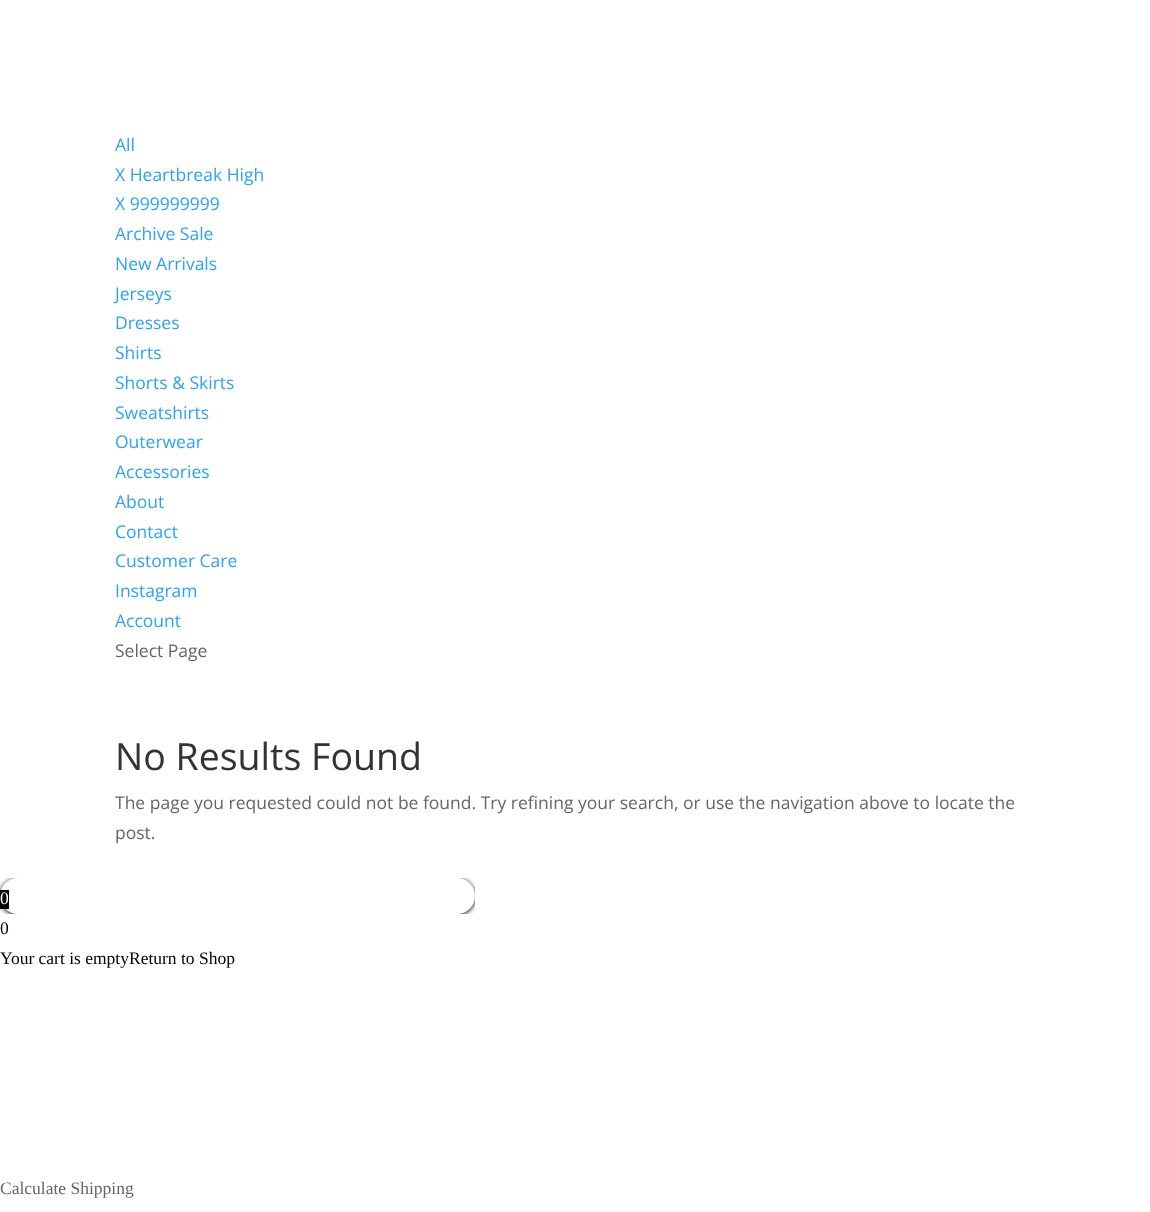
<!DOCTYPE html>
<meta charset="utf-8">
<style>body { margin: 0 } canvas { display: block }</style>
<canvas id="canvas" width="1150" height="1212"></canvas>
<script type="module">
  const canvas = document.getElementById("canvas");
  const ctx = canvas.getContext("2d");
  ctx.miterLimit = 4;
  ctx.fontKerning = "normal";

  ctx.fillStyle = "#ffffff";
  ctx.fillRect(0, 0, 1150, 1212);
  ctx.font = "17.5px Open Sans";
  ctx.fillStyle = "#2ea3f2";
  ctx.fillText("All", 115, 151);
  ctx.fillText("X Heartbreak High", 115, 181);
  ctx.fillText("X 999999999", 115, 210);
  ctx.fillText("Archive Sale", 115, 240);
  ctx.fillText("New Arrivals", 115, 270);
  ctx.fillText("Jerseys", 115, 300);
  ctx.fillText("Dresses", 115, 329);
  ctx.fillText("Shirts", 115, 359);
  ctx.fillText("Shorts & Skirts", 115, 389);
  ctx.fillText("Sweatshirts", 115, 419);
  ctx.fillText("Outerwear", 115, 448);
  ctx.fillText("Accessories", 115, 478);
  ctx.fillText("About", 115, 508);
  ctx.fillText("Contact", 115, 538);
  ctx.fillText("Customer Care", 115, 567);
  ctx.fillText("Instagram", 115, 597);
  ctx.fillText("Account", 115, 627);
  ctx.fillStyle = "#666666";
  ctx.fillText("Select Page", 115, 657);
  ctx.font = "37.5px Open Sans";
  ctx.fillStyle = "#333333";
  ctx.fillText("No Results Found", 115, 770);
  ctx.font = "17.5px Open Sans";
  ctx.fillStyle = "#666666";
  ctx.fillText("The page you requested could not be found. Try refining your search, or use the navigation above to locate the", 115, 809);
  ctx.fillText("post.", 115, 839);
  ctx.save();
  ctx.beginPath();
  ctx.rect(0, 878, 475, 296);
  ctx.clip();
  ctx.fillStyle = "#000000";
  ctx.filter = "blur(2.5px)";
  ctx.beginPath();
  ctx.roundRect(0, 879, 475, 36, 18);
  ctx.fill();
  ctx.filter = "none";
  ctx.restore();
  ctx.fillStyle = "#ffffff";
  ctx.beginPath();
  ctx.roundRect(0, 878, 475, 36, 18);
  ctx.fill();
  ctx.fillStyle = "#000000";
  ctx.fillRect(0, 890, 9, 19);
  ctx.font = "17.5px Liberation Serif";
  ctx.fillStyle = "#ffffff";
  ctx.fillText("0", 0, 904);
  ctx.fillRect(2, 914, 471, 7);
  ctx.fillStyle = "#000000";
  ctx.fillText("0", 0, 934);
  ctx.fillText("Your cart is emptyReturn to Shop", 0, 964);
  ctx.fillStyle = "#666666";
  ctx.fillText("Calculate Shipping", 0, 1194);
</script>
